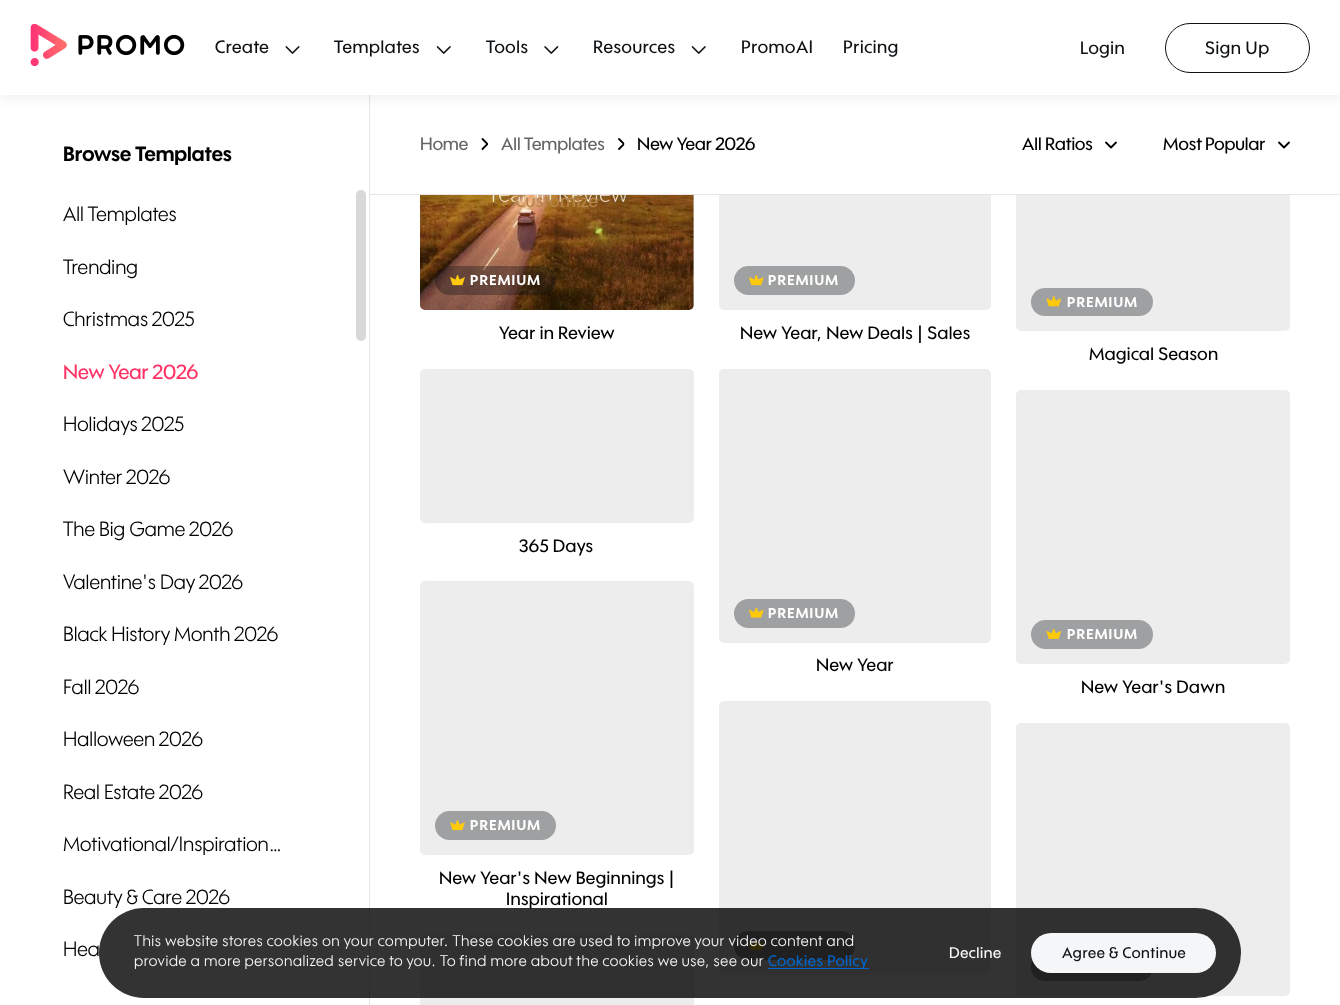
<!DOCTYPE html>
<meta charset="utf-8">
<style>body { margin: 0 } canvas { display: block }</style>
<canvas id="canvas" width="1340" height="1005"></canvas>
<script type="module">
  const canvas = document.getElementById("canvas");
  const ctx = canvas.getContext("2d");
  ctx.miterLimit = 4;
  ctx.fontKerning = "normal";
  async function loadImage(src) {
    const img = new Image();
    img.src = src;
    await img.decode();
    return img;
  }

  ctx.fillStyle = "#ffffff";
  ctx.fillRect(0, 0, 1340, 1005);
  ctx.fillStyle = "#e6e6e6";
  ctx.fillRect(369, 95, 1, 910);
  ctx.fillStyle = "#ededed";
  ctx.beginPath();
  ctx.roundRect(420, 38, 274, 272, 5);
  ctx.fill();
  ctx.beginPath();
  ctx.roundRect(719, 38, 272, 272, 5);
  ctx.fill();
  ctx.beginPath();
  ctx.roundRect(1016, 59, 274, 272, 5);
  ctx.fill();
  ctx.fillStyle = "#ffffff";
  ctx.fillRect(420, 95, 870, 99);
  ctx.fillStyle = "rgba(0, 0, 0, 0.05)";
  ctx.filter = "blur(5px)";
  ctx.beginPath();
  ctx.rect(0, 5, 1340, 95);
  ctx.fill();
  ctx.filter = "none";
  ctx.fillStyle = "#ffffff";
  ctx.fillRect(0, 1, 1340, 94);
  ctx.drawImage(await loadImage("img1.png"), 30, 24, 155, 42);
  ctx.letterSpacing = "0.62px";
  ctx.font = "500 17.5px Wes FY";
  ctx.fillStyle = "#0e1114";
  ctx.fillText("Create", 215, 53);
  ctx.drawImage(await loadImage("img2.png"), 285, 46, 15, 8);
  ctx.fillText("Templates", 334, 53);
  ctx.drawImage(await loadImage("img3.png"), 436, 46, 15, 8);
  ctx.fillText("Tools", 486, 53);
  ctx.drawImage(await loadImage("img4.png"), 544, 46, 15, 8);
  ctx.fillText("Resources", 593, 53);
  ctx.drawImage(await loadImage("img3.png"), 691, 46, 15, 8);
  ctx.fillText("PromoAI", 741, 53);
  ctx.fillText("Pricing", 843, 53);
  ctx.fillText("Login", 1080, 54);
  ctx.beginPath();
  ctx.roundRect(1165.5, 23.5, 144, 49, 24.5);
  ctx.strokeStyle = "#0e1114";
  ctx.stroke();
  ctx.fillText("Sign Up", 1205, 54);
  ctx.letterSpacing = "0px";
  ctx.font = "bold 20px Wes FY";
  ctx.fillStyle = "#000000";
  ctx.fillText("Browse Templates", 63, 161);
  ctx.font = "20px Wes FY";
  ctx.fillText("All Templates", 63, 221);
  ctx.fillText("Trending", 63, 274);
  ctx.fillText("Christmas 2025", 63, 326);
  ctx.font = "500 20px Wes FY";
  ctx.fillStyle = "#ff3366";
  ctx.fillText("New Year 2026", 63, 379);
  ctx.font = "20px Wes FY";
  ctx.fillStyle = "#000000";
  ctx.fillText("Holidays 2025", 63, 431);
  ctx.fillText("Winter 2026", 63, 484);
  ctx.fillText("The Big Game 2026", 63, 536);
  ctx.fillText("Valentine's Day 2026", 63, 589);
  ctx.fillText("Black History Month 2026", 63, 641);
  ctx.fillText("Fall 2026", 63, 694);
  ctx.fillText("Halloween 2026", 63, 746);
  ctx.fillText("Real Estate 2026", 63, 799);
  ctx.fillText("Motivational/Inspiration…", 63, 851);
  ctx.fillText("Beauty & Care 2026", 63, 904);
  ctx.fillText("Hea", 63, 956);
  ctx.fillStyle = "#d8d8d8";
  ctx.beginPath();
  ctx.roundRect(356, 190, 10, 151, 5);
  ctx.fill();
  ctx.drawImage(await loadImage("img6.png"), 420, 195, 274, 115);
  ctx.letterSpacing = "0.5px";
  ctx.font = "500 17.5px Wes FY";
  ctx.fillStyle = "#b6844c";
  ctx.fillText("Customize", 515, 207);
  ctx.fillStyle = "#e6e6e6";
  ctx.fillRect(370, 194, 970, 1);
  ctx.letterSpacing = "0px";
  ctx.fillStyle = "#666666";
  ctx.fillText("Home", 420, 150);
  ctx.save();
  ctx.beginPath();
  ctx.moveTo(480.5, 150.5);
  ctx.lineTo(480.5, 138);
  ctx.lineTo(488, 138);
  ctx.lineTo(488, 150.5);
  ctx.closePath();
  ctx.clip();
  ctx.beginPath();
  ctx.moveTo(482.5, 149);
  ctx.lineTo(487.5, 144);
  ctx.lineTo(482.5, 139);
  ctx.strokeStyle = "#000000";
  ctx.lineWidth = 1.8;
  ctx.lineCap = "round";
  ctx.lineJoin = "round";
  ctx.stroke();
  ctx.restore();
  ctx.fillText("All Templates", 501, 150);
  ctx.save();
  ctx.beginPath();
  ctx.moveTo(617, 150.5);
  ctx.lineTo(617, 138);
  ctx.lineTo(624.5, 138);
  ctx.lineTo(624.5, 150.5);
  ctx.closePath();
  ctx.clip();
  ctx.beginPath();
  ctx.moveTo(617, 150.5);
  ctx.lineTo(617, 138);
  ctx.lineTo(624.5, 138);
  ctx.lineTo(624.5, 150.5);
  ctx.closePath();
  ctx.clip();
  ctx.beginPath();
  ctx.moveTo(619, 149);
  ctx.lineTo(624, 144);
  ctx.lineTo(619, 139);
  ctx.strokeStyle = "#000000";
  ctx.lineWidth = 1.8;
  ctx.lineCap = "round";
  ctx.lineJoin = "round";
  ctx.stroke();
  ctx.restore();
  ctx.fillStyle = "#000000";
  ctx.fillText("New Year 2026", 637, 150);
  ctx.fillText("All Ratios", 1022, 150);
  ctx.beginPath();
  ctx.moveTo(1106, 142.5);
  ctx.lineTo(1111, 147.5);
  ctx.lineTo(1116, 142.5);
  ctx.strokeStyle = "#000000";
  ctx.lineWidth = 1.8;
  ctx.lineCap = "round";
  ctx.lineJoin = "round";
  ctx.stroke();
  ctx.fillText("Most Popular", 1163, 150);
  ctx.beginPath();
  ctx.moveTo(1279, 142.5);
  ctx.lineTo(1284, 147.5);
  ctx.lineTo(1289, 142.5);
  ctx.stroke();
  ctx.fillStyle = "rgba(14, 17, 20, 0.35)";
  ctx.beginPath();
  ctx.roundRect(435, 266, 121, 29, 14.5);
  ctx.fill();
  ctx.drawImage(await loadImage("img5.png"), 450, 275, 15, 11);
  ctx.letterSpacing = "1.25px";
  ctx.font = "bold 13.75px Wes FY";
  ctx.fillStyle = "#ffffff";
  ctx.fillText("PREMIUM", 470, 285);
  ctx.letterSpacing = "0.4px";
  ctx.font = "500 17.5px Wes FY";
  ctx.fillStyle = "#000000";
  ctx.fillText("Year in Review", 499, 339);
  ctx.fillStyle = "#ededed";
  ctx.beginPath();
  ctx.roundRect(420, 369, 274, 154, 5);
  ctx.fill();
  ctx.fillStyle = "#000000";
  ctx.fillText("365 Days", 519, 552);
  ctx.fillStyle = "#ededed";
  ctx.beginPath();
  ctx.roundRect(420, 581, 274, 274, 5);
  ctx.fill();
  ctx.fillStyle = "#9fa0a1";
  ctx.beginPath();
  ctx.roundRect(435, 811, 121, 29, 14.5);
  ctx.fill();
  ctx.drawImage(await loadImage("img7.png"), 450, 820, 15, 11);
  ctx.letterSpacing = "1.25px";
  ctx.font = "bold 13.75px Wes FY";
  ctx.fillStyle = "#ffffff";
  ctx.fillText("PREMIUM", 470, 830);
  ctx.letterSpacing = "0.4px";
  ctx.font = "500 17.5px Wes FY";
  ctx.fillStyle = "#000000";
  ctx.fillText("New Year's New Beginnings |", 439, 884);
  ctx.fillText("Inspirational", 506, 905);
  ctx.fillStyle = "#ededed";
  ctx.beginPath();
  ctx.roundRect(420, 935, 274, 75, 5);
  ctx.fill();
  ctx.fillStyle = "#9fa0a1";
  ctx.beginPath();
  ctx.roundRect(734, 266, 121, 29, 14.5);
  ctx.fill();
  ctx.drawImage(await loadImage("img8.png"), 749, 275, 15, 11);
  ctx.letterSpacing = "1.25px";
  ctx.font = "bold 13.75px Wes FY";
  ctx.fillStyle = "#ffffff";
  ctx.fillText("PREMIUM", 768, 285);
  ctx.letterSpacing = "0.4px";
  ctx.font = "500 17.5px Wes FY";
  ctx.fillStyle = "#000000";
  ctx.fillText("New Year, New Deals | Sales", 740, 339);
  ctx.fillStyle = "#ededed";
  ctx.beginPath();
  ctx.roundRect(719, 369, 272, 274, 5);
  ctx.fill();
  ctx.fillStyle = "#9fa0a1";
  ctx.beginPath();
  ctx.roundRect(734, 599, 121, 29, 14.5);
  ctx.fill();
  ctx.drawImage(await loadImage("img9.png"), 749, 608, 15, 10);
  ctx.letterSpacing = "1.25px";
  ctx.font = "bold 13.75px Wes FY";
  ctx.fillStyle = "#ffffff";
  ctx.fillText("PREMIUM", 768, 618);
  ctx.letterSpacing = "0.4px";
  ctx.font = "500 17.5px Wes FY";
  ctx.fillStyle = "#000000";
  ctx.fillText("New Year", 816, 671);
  ctx.fillStyle = "#ededed";
  ctx.beginPath();
  ctx.roundRect(719, 701, 272, 274, 5);
  ctx.fill();
  ctx.fillStyle = "#9fa0a1";
  ctx.beginPath();
  ctx.roundRect(734, 931, 121, 29, 14.5);
  ctx.fill();
  ctx.drawImage(await loadImage("img10.png"), 749, 939, 15, 11);
  ctx.beginPath();
  ctx.roundRect(1031, 288, 122, 28, 14);
  ctx.fill();
  ctx.drawImage(await loadImage("img11.png"), 1046, 296, 15, 11);
  ctx.letterSpacing = "1.25px";
  ctx.font = "bold 13.75px Wes FY";
  ctx.fillStyle = "#ffffff";
  ctx.fillText("PREMIUM", 1067, 307);
  ctx.letterSpacing = "0.4px";
  ctx.font = "500 17.5px Wes FY";
  ctx.fillStyle = "#000000";
  ctx.fillText("Magical Season", 1089, 360);
  ctx.fillStyle = "#ededed";
  ctx.beginPath();
  ctx.roundRect(1016, 390, 274, 274, 5);
  ctx.fill();
  ctx.fillStyle = "#9fa0a1";
  ctx.beginPath();
  ctx.roundRect(1031, 620, 122, 29, 14.5);
  ctx.fill();
  ctx.drawImage(await loadImage("img12.png"), 1046, 629, 15, 10);
  ctx.letterSpacing = "1.25px";
  ctx.font = "bold 13.75px Wes FY";
  ctx.fillStyle = "#ffffff";
  ctx.fillText("PREMIUM", 1067, 639);
  ctx.letterSpacing = "0.4px";
  ctx.font = "500 17.5px Wes FY";
  ctx.fillStyle = "#000000";
  ctx.fillText("New Year's Dawn", 1081, 693);
  ctx.fillStyle = "#ededed";
  ctx.beginPath();
  ctx.roundRect(1016, 723, 274, 273, 5);
  ctx.fill();
  ctx.fillStyle = "#9fa0a1";
  ctx.beginPath();
  ctx.roundRect(1031, 953, 122, 28, 14);
  ctx.fill();
  ctx.fillStyle = "rgba(0, 0, 0, 0.8)";
  ctx.beginPath();
  ctx.roundRect(99, 908, 1142, 90, 45);
  ctx.fill();
  ctx.letterSpacing = "0.62px";
  ctx.font = "15px Wes FY";
  ctx.fillStyle = "#f9f9f9";
  ctx.fillText("This website stores cookies on your computer. These cookies are used to improve your video content and", 134, 946);
  ctx.fillText("provide a more personalized service to you. To find more about the cookies we use, see our", 134, 966);
  ctx.fillStyle = "#0066cc";
  ctx.fillRect(768, 968, 101, 1);
  ctx.font = "500 15px Wes FY";
  ctx.fillText("Cookies Policy", 768, 966);
  ctx.fillStyle = "#f9f9f9";
  ctx.fillText("Decline", 949, 958);
  ctx.fillStyle = "#f5f6f8";
  ctx.beginPath();
  ctx.roundRect(1031, 933, 185, 40, 20);
  ctx.fill();
  ctx.fillStyle = "#0e1114";
  ctx.fillText("Agree & Continue", 1062, 958);
</script>
